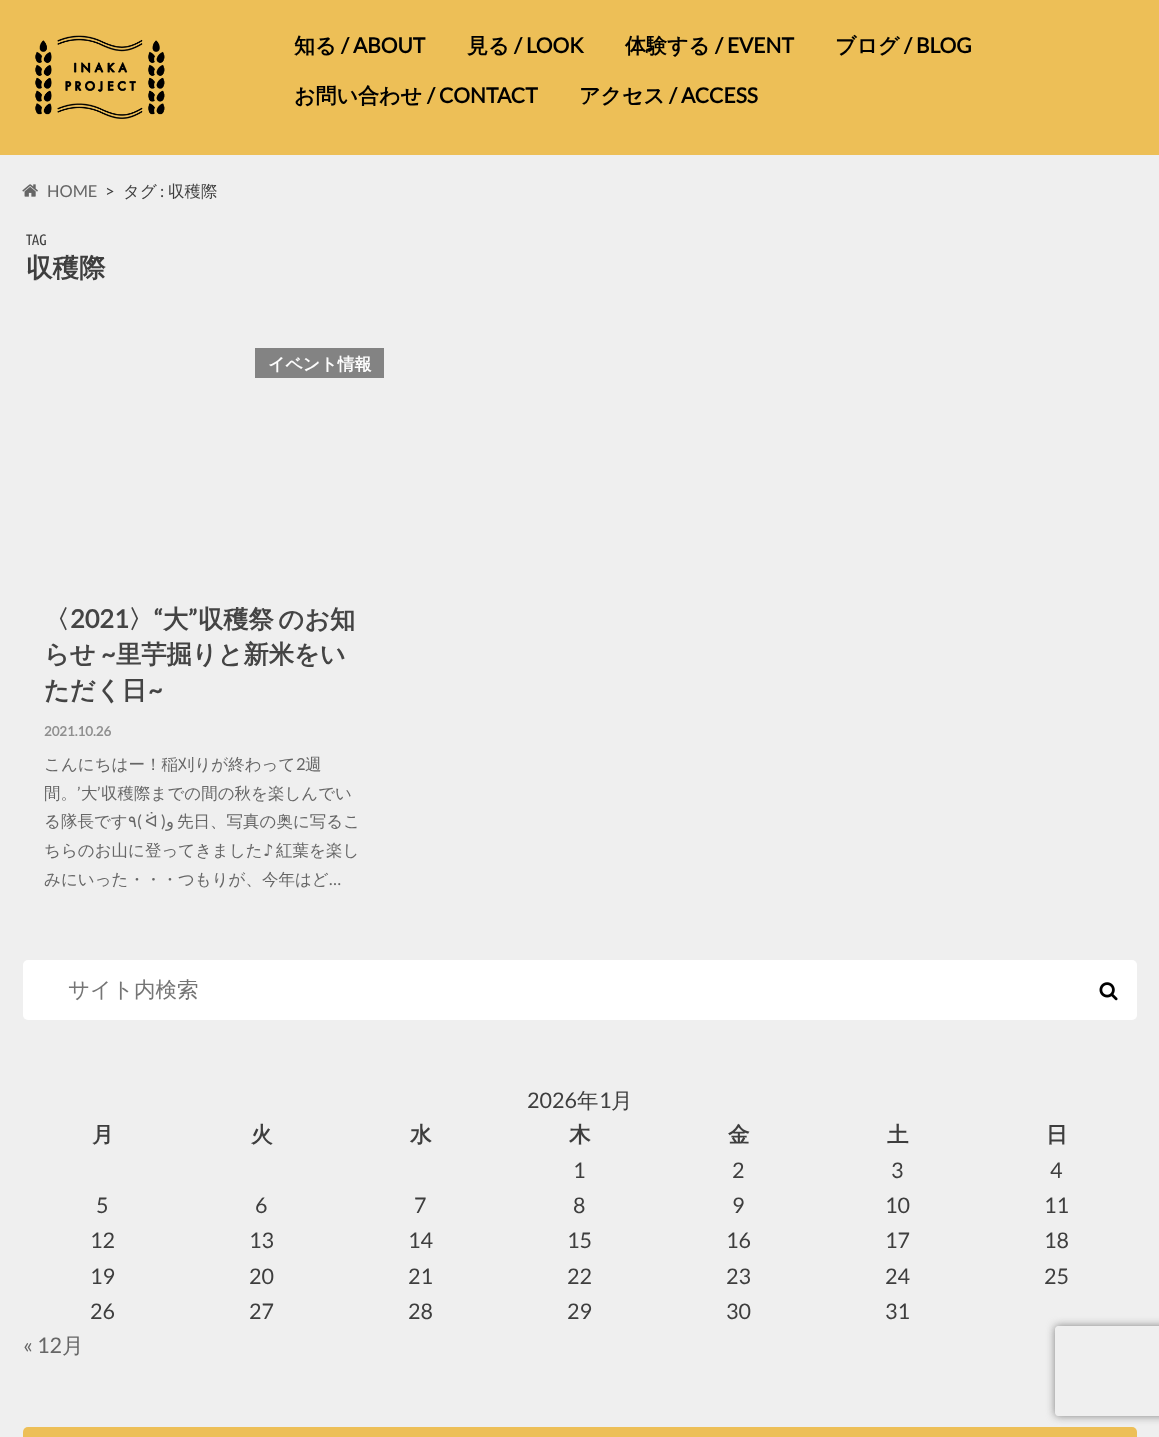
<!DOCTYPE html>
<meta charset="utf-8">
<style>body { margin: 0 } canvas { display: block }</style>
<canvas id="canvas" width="1159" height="1437"></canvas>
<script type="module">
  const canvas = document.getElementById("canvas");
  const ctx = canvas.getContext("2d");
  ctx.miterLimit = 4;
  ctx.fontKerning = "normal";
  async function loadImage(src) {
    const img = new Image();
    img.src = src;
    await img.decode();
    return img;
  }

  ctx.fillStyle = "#efefef";
  ctx.fillRect(0, 0, 1159, 1437);
  ctx.fillStyle = "#edbf57";
  ctx.fillRect(0, 0, 1159, 155);
  ctx.drawImage(await loadImage("img1.png"), 35, 35, 130, 84);
  ctx.font = "bold 21px WenQuanYi Zen Hei";
  ctx.fillStyle = "#000000";
  ctx.fillText("知る", 294, 53);
  ctx.font = "bold 21px Lato";
  ctx.fillText("/ ABOUT", 341, 53);
  ctx.font = "bold 21px WenQuanYi Zen Hei";
  ctx.fillText("見る", 467, 53);
  ctx.font = "bold 21px Lato";
  ctx.fillText("/ LOOK", 514, 53);
  ctx.font = "bold 21px WenQuanYi Zen Hei";
  ctx.fillText("体験する", 625, 53);
  ctx.font = "bold 21px Lato";
  ctx.fillText("/ EVENT", 715, 53);
  ctx.font = "bold 21px WenQuanYi Zen Hei";
  ctx.fillText("ブログ", 835, 53);
  ctx.font = "bold 21px Lato";
  ctx.fillText("/ BLOG", 904, 53);
  ctx.font = "bold 21px WenQuanYi Zen Hei";
  ctx.fillText("お問い合わせ", 294, 103);
  ctx.font = "bold 21px Lato";
  ctx.fillText("/ CONTACT", 427, 103);
  ctx.font = "bold 21px WenQuanYi Zen Hei";
  ctx.fillText("アクセス", 579, 103);
  ctx.font = "bold 21px Lato";
  ctx.fillText("/ ACCESS", 669, 103);
  ctx.drawImage(await loadImage("img2.png"), 22, 184, 16, 13);
  ctx.font = "16.5px Lato";
  ctx.fillStyle = "#666666";
  ctx.fillText("HOME", 47, 197);
  ctx.fillStyle = "#3e3e3e";
  ctx.fillText(">", 105, 197);
  ctx.font = "500 16.5px WenQuanYi Zen Hei";
  ctx.fillText("タグ", 123, 197);
  ctx.font = "16.5px Lato";
  ctx.fillText(":", 160, 197);
  ctx.font = "500 16.5px WenQuanYi Zen Hei";
  ctx.fillText("収穫際", 168, 197);
  ctx.font = "15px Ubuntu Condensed";
  ctx.fillText("TAG", 26, 245);
  ctx.font = "bold 26.5px WenQuanYi Zen Hei";
  ctx.fillText("収穫際", 26, 277);
  ctx.fillStyle = "#838383";
  ctx.fillRect(255, 348, 129, 30);
  ctx.font = "bold 17px WenQuanYi Zen Hei";
  ctx.fillStyle = "#fdfdfd";
  ctx.fillText("イベント情報", 268, 370);
  ctx.font = "bold 25.25px WenQuanYi Zen Hei";
  ctx.fillStyle = "#444444";
  ctx.fillText("〈", 44, 628);
  ctx.font = "bold 25.25px Lato";
  ctx.fillText("2021", 70, 628);
  ctx.font = "bold 25.25px WenQuanYi Zen Hei";
  ctx.fillText("〉", 128, 628);
  ctx.font = "bold 25.25px Lato";
  ctx.fillText("“", 154, 628);
  ctx.font = "bold 25.25px WenQuanYi Zen Hei";
  ctx.fillText("大", 163, 628);
  ctx.font = "bold 25.25px Lato";
  ctx.fillText("”", 188, 628);
  ctx.wordSpacing = "-3px";
  ctx.font = "bold 25.25px WenQuanYi Zen Hei";
  ctx.fillText("収穫祭 のお知", 198, 628);
  ctx.wordSpacing = "0px";
  ctx.fillText("らせ", 44, 663);
  ctx.font = "bold 25.25px Lato";
  ctx.fillText("~", 101, 663);
  ctx.font = "bold 25.25px WenQuanYi Zen Hei";
  ctx.fillText("里芋掘りと新米をい", 116, 663);
  ctx.fillText("ただく日", 44, 699);
  ctx.font = "bold 25.25px Lato";
  ctx.fillText("~", 148, 699);
  ctx.font = "bold 13.25px Lato";
  ctx.fillStyle = "#8f8f8f";
  ctx.fillText("2021.10.26", 44, 736);
  ctx.font = "500 16.5px WenQuanYi Zen Hei";
  ctx.fillStyle = "#666666";
  ctx.fillText("こんにちはー！稲刈りが終わって", 44, 770);
  ctx.font = "16.5px Lato";
  ctx.fillText("2", 296, 770);
  ctx.font = "500 16.5px WenQuanYi Zen Hei";
  ctx.fillText("週", 305, 770);
  ctx.fillText("間。", 44, 799);
  ctx.font = "16.5px Lato";
  ctx.fillText("’", 77, 799);
  ctx.font = "500 16.5px WenQuanYi Zen Hei";
  ctx.fillText("大", 81, 799);
  ctx.font = "16.5px Lato";
  ctx.fillText("’", 97, 799);
  ctx.font = "500 16.5px WenQuanYi Zen Hei";
  ctx.fillText("収穫際までの間の秋を楽しんでい", 101, 799);
  ctx.fillText("る隊長です", 44, 827);
  ctx.font = "16.5px DejaVu Sans";
  ctx.fillText("٩", 128, 827);
  ctx.font = "16.5px Lato";
  ctx.fillText("(", 137, 827);
  ctx.font = "16.5px DejaVu Sans";
  ctx.fillText("ᐛ", 145, 827);
  ctx.font = "16.5px Lato";
  ctx.fillText(")", 161, 827);
  ctx.direction = "rtl";
  ctx.font = "16.5px DejaVu Sans";
  ctx.fillText("و", 174, 827);
  ctx.direction = "ltr";
  ctx.font = "500 16.5px WenQuanYi Zen Hei";
  ctx.fillText("先日、写真の奥に写るこ", 177, 827);
  ctx.fillText("ちらのお山に登ってきました", 44, 856);
  ctx.font = "16.5px DejaVu Sans";
  ctx.fillText("♪", 263, 856);
  ctx.font = "500 16.5px WenQuanYi Zen Hei";
  ctx.fillText("紅葉を楽し", 276, 856);
  ctx.fillText("みにいった・・・つもりが、今年はど", 44, 885);
  ctx.font = "16.5px Lato";
  ctx.fillText("…", 329, 885);
  ctx.fillStyle = "#ffffff";
  ctx.beginPath();
  ctx.roundRect(23, 960, 1114, 60, 5);
  ctx.fill();
  ctx.font = "500 21.5px WenQuanYi Zen Hei";
  ctx.fillStyle = "#757575";
  ctx.fillText("サイト内検索", 68, 997);
  ctx.drawImage(await loadImage("img3.png"), 1099, 982, 19, 19);
  ctx.font = "21.5px Lato";
  ctx.fillStyle = "#3e3e3e";
  ctx.fillText("2026", 527, 1108);
  ctx.font = "500 21.5px WenQuanYi Zen Hei";
  ctx.fillText("年", 577, 1108);
  ctx.font = "21.5px Lato";
  ctx.fillText("1", 599, 1108);
  ctx.font = "500 21.5px WenQuanYi Zen Hei";
  ctx.fillText("月", 611, 1108);
  ctx.font = "bold 21.5px WenQuanYi Zen Hei";
  ctx.fillText("月", 92, 1142);
  ctx.fillText("火", 251, 1142);
  ctx.fillText("水", 410, 1142);
  ctx.fillText("木", 569, 1142);
  ctx.fillText("金", 728, 1142);
  ctx.fillText("土", 887, 1142);
  ctx.fillText("日", 1046, 1142);
  ctx.font = "21.5px Lato";
  ctx.fillText("1", 573, 1178);
  ctx.fillText("2", 732, 1178);
  ctx.fillText("3", 891, 1178);
  ctx.fillText("4", 1050, 1178);
  ctx.fillText("5", 96, 1213);
  ctx.fillText("6", 255, 1213);
  ctx.fillText("7", 414, 1213);
  ctx.fillText("8", 573, 1213);
  ctx.fillText("9", 732, 1213);
  ctx.fillText("10", 885, 1213);
  ctx.fillText("11", 1044, 1213);
  ctx.fillText("12", 90, 1248);
  ctx.fillText("13", 249, 1248);
  ctx.fillText("14", 408, 1248);
  ctx.fillText("15", 567, 1248);
  ctx.fillText("16", 726, 1248);
  ctx.fillText("17", 885, 1248);
  ctx.fillText("18", 1044, 1248);
  ctx.fillText("19", 90, 1284);
  ctx.fillText("20", 249, 1284);
  ctx.fillText("21", 408, 1284);
  ctx.fillText("22", 567, 1284);
  ctx.fillText("23", 726, 1284);
  ctx.fillText("24", 885, 1284);
  ctx.fillText("25", 1044, 1284);
  ctx.fillText("26", 90, 1319);
  ctx.fillText("27", 249, 1319);
  ctx.fillText("28", 408, 1319);
  ctx.fillText("29", 567, 1319);
  ctx.fillText("30", 726, 1319);
  ctx.fillText("31", 885, 1319);
  ctx.fillStyle = "#666666";
  ctx.fillText("« 12", 23, 1353);
  ctx.font = "500 21.5px WenQuanYi Zen Hei";
  ctx.fillText("月", 62, 1353);
  ctx.fillStyle = "#edbf57";
  ctx.beginPath();
  ctx.roundRect(23, 1427, 1114, 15, 5);
  ctx.fill();
  ctx.save();
  ctx.beginPath();
  ctx.moveTo(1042, 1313);
  ctx.lineTo(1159, 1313);
  ctx.lineTo(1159, 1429);
  ctx.lineTo(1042, 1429);
  ctx.closePath();
  ctx.moveTo(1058, 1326);
  ctx.lineTo(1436, 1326);
  ctx.bezierCurveTo(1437.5, 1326, 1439, 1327.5, 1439, 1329);
  ctx.lineTo(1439, 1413);
  ctx.bezierCurveTo(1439, 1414.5, 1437.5, 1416, 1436, 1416);
  ctx.lineTo(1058, 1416);
  ctx.bezierCurveTo(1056.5, 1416, 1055, 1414.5, 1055, 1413);
  ctx.lineTo(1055, 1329);
  ctx.bezierCurveTo(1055, 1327.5, 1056.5, 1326, 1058, 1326);
  ctx.closePath();
  ctx.clip("evenodd");
  ctx.fillStyle = "#808080";
  ctx.filter = "blur(4px)";
  ctx.beginPath();
  ctx.roundRect(1055, 1326, 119, 90, 3);
  ctx.fill();
  ctx.filter = "none";
  ctx.restore();
</script>
